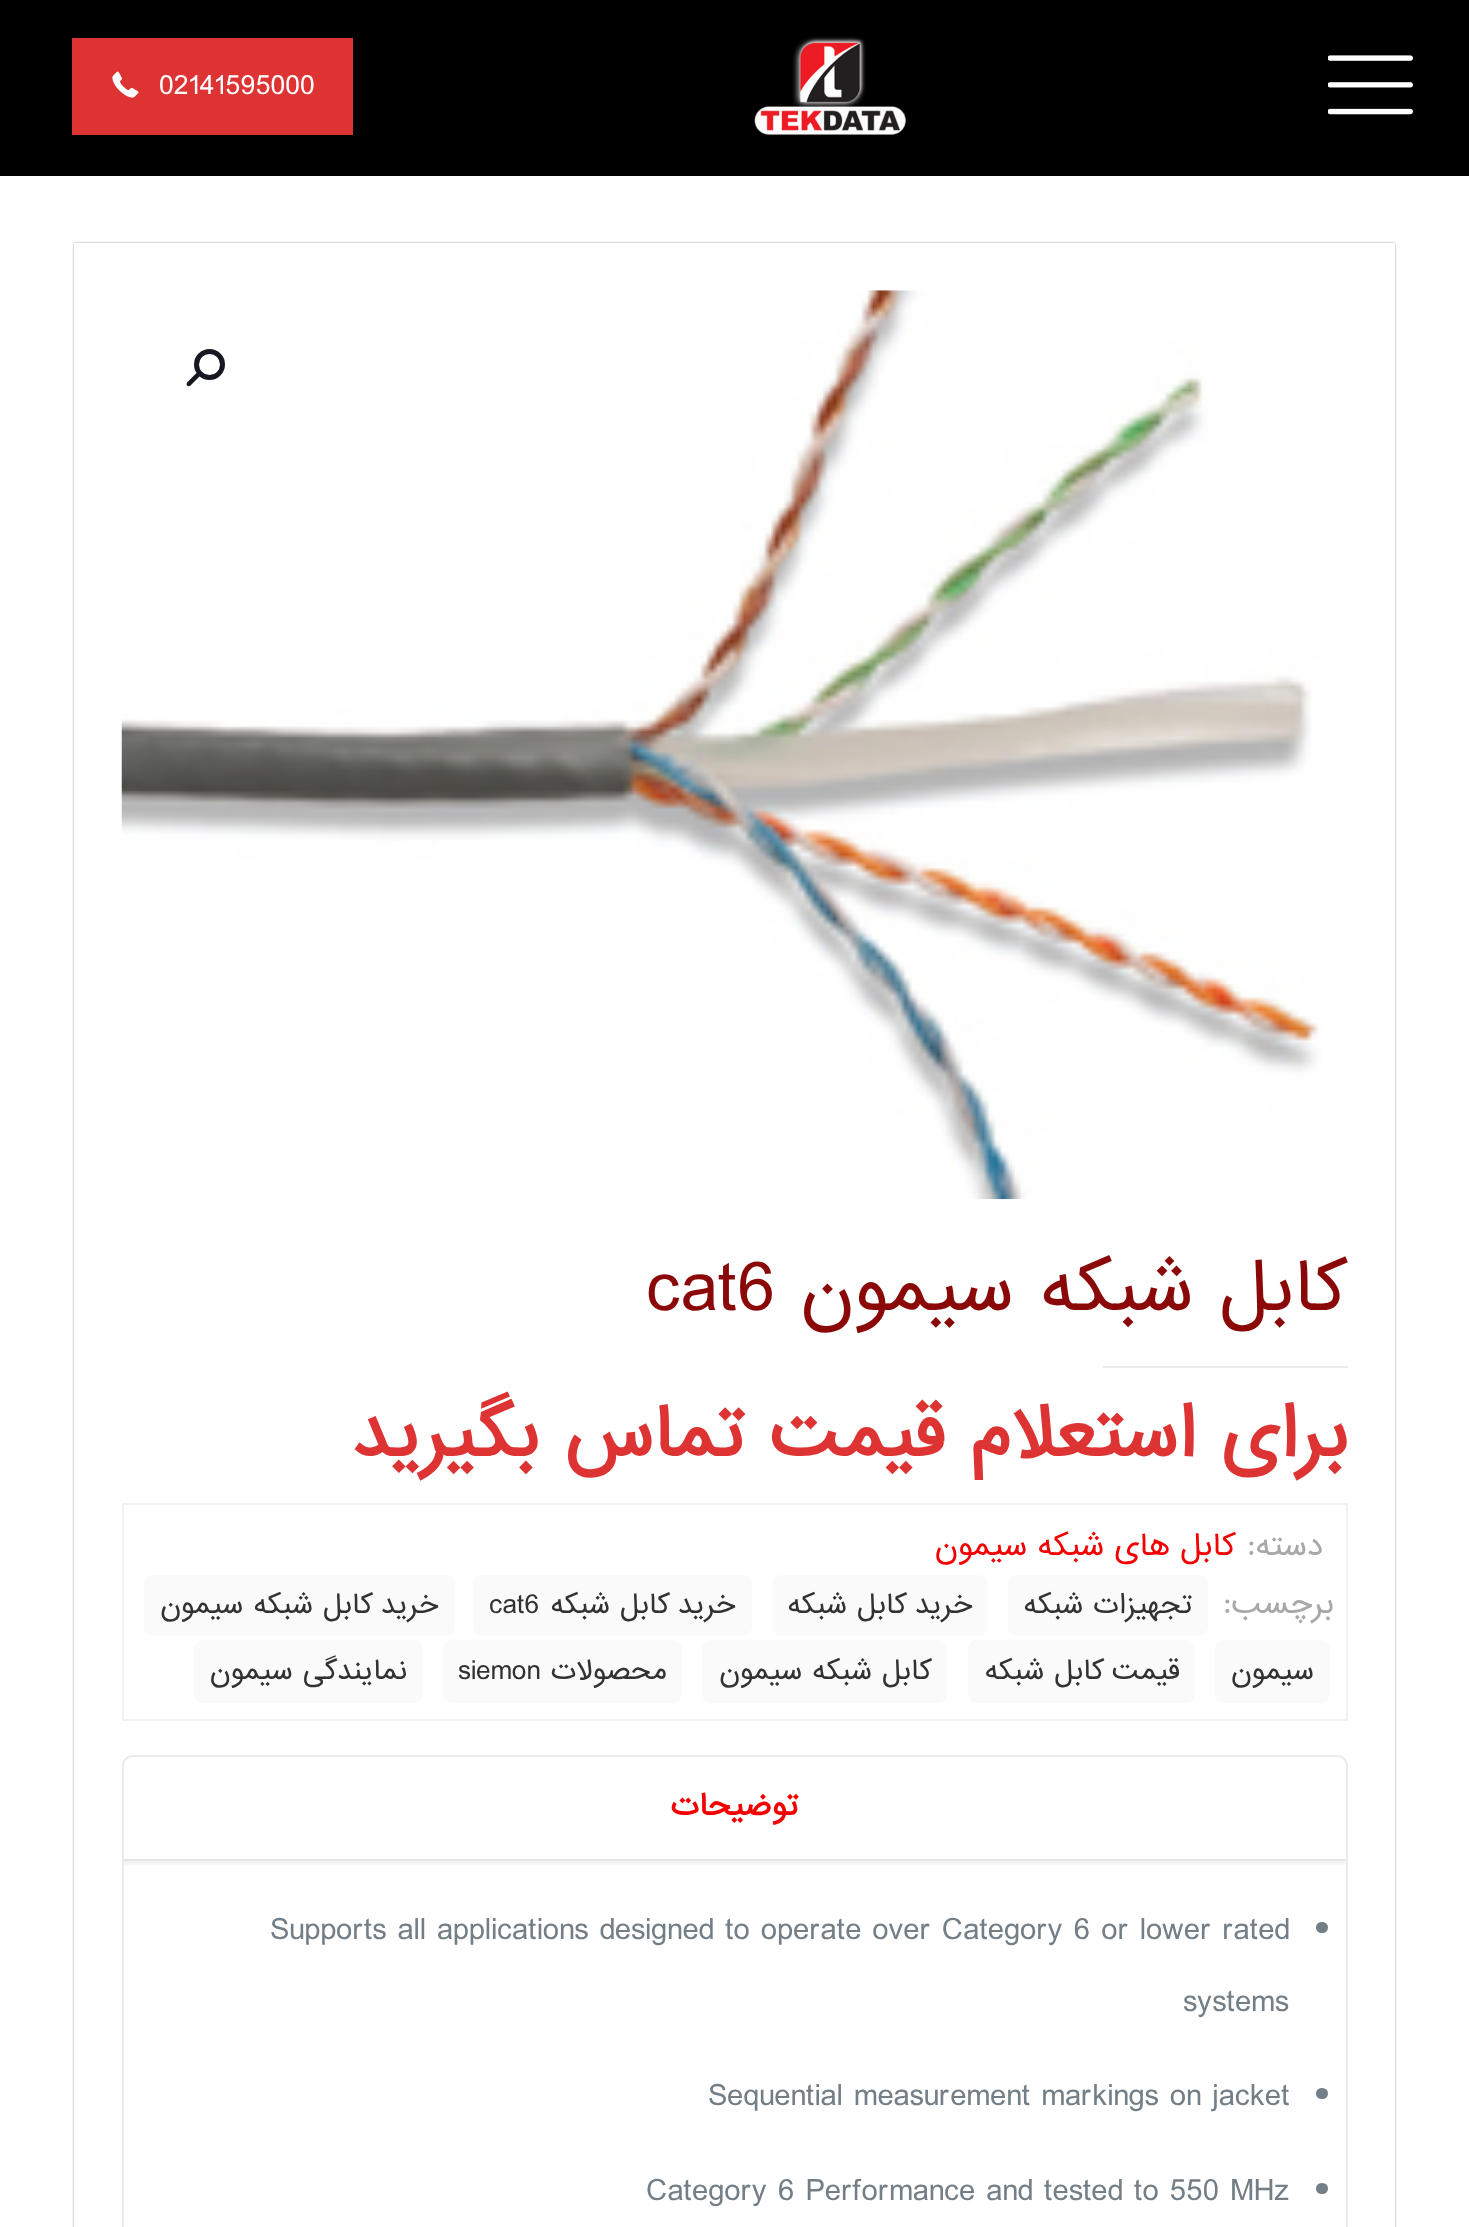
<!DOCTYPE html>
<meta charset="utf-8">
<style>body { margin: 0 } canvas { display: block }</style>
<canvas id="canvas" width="1469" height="2227"></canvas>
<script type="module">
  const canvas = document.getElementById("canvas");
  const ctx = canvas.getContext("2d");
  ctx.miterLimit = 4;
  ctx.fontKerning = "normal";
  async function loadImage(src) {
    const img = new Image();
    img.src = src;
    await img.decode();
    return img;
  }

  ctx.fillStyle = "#ffffff";
  ctx.fillRect(0, 0, 1469, 2227);
  ctx.fillStyle = "#000000";
  ctx.fillRect(0, 0, 1469, 176);
  ctx.drawImage(await loadImage("img1.png"), 1328, 55, 85, 60);
  ctx.drawImage(await loadImage("img2.png"), 754, 37, 152, 98);
  ctx.fillStyle = "#dd3333";
  ctx.fillRect(72, 38, 281, 97);
  ctx.font = "26.5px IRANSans";
  ctx.fillStyle = "#ffffff";
  ctx.fillText("02141595000", 159, 94);
  ctx.drawImage(await loadImage("img3.png"), 112, 71, 27, 27);
  ctx.fillStyle = "#999999";
  ctx.filter = "blur(1px)";
  ctx.beginPath();
  ctx.rect(74, 243, 1321, 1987);
  ctx.fill();
  ctx.filter = "none";
  ctx.fillStyle = "#ffffff";
  ctx.fillRect(74, 243, 1321, 1984);
  ctx.drawImage(await loadImage("img4.png"), 121, 290, 1202, 910);
  ctx.beginPath();
  ctx.arc(209.5, 364.5, 13, 0, Math.PI * 2);
  ctx.strokeStyle = "#161922";
  ctx.lineWidth = 5;
  ctx.stroke();
  ctx.fillStyle = "#161922";
  ctx.beginPath();
  ctx.moveTo(200, 373);
  ctx.bezierCurveTo(200.5, 374, 200.5, 375.5, 200, 376);
  ctx.lineTo(190.5, 385.5);
  ctx.bezierCurveTo(189.5, 386.5, 188, 386.5, 187, 385.5);
  ctx.bezierCurveTo(186.5, 385, 186.5, 383.5, 187, 382.5);
  ctx.lineTo(196.5, 373);
  ctx.bezierCurveTo(197.5, 372, 199, 372, 200, 373);
  ctx.closePath();
  ctx.fill();
  ctx.direction = "rtl";
  ctx.font = "67.5px IRANSans";
  ctx.fillStyle = "#8b0808";
  ctx.fillText("کابل شبکه", 1348, 1310);
  ctx.fillText("سیمون", 1014, 1310);
  ctx.direction = "ltr";
  ctx.fillText("cat6", 646, 1310);
  ctx.fillStyle = "#ebebeb";
  ctx.fillRect(1103, 1366, 245, 2);
  ctx.direction = "rtl";
  ctx.font = "bold 67.5px IRANSans";
  ctx.fillStyle = "#dd3333";
  ctx.fillText("برای استعلام قیمت تماس بگیرید", 1348, 1456);
  ctx.strokeStyle = "#f1f1f1";
  ctx.lineWidth = 2;
  ctx.strokeRect(123, 1504, 1224, 216);
  ctx.font = "29.25px IRANSans";
  ctx.fillStyle = "#a8a8a8";
  ctx.fillText("دسته:", 1323, 1555);
  ctx.wordSpacing = "-1px";
  ctx.fillStyle = "#f40000";
  ctx.fillText("کابل های شبکه سیمون", 1236, 1555);
  ctx.wordSpacing = "0px";
  ctx.fillStyle = "#a8a8a8";
  ctx.fillText("برچسب:", 1334, 1613);
  ctx.fillStyle = "#fafafa";
  ctx.beginPath();
  ctx.roundRect(1008, 1575, 200, 61, 9);
  ctx.fill();
  ctx.font = "26.25px IRANSans";
  ctx.fillStyle = "#323232";
  ctx.fillText("تجهیزات شبکه", 1192, 1613);
  ctx.fillStyle = "#fafafa";
  ctx.beginPath();
  ctx.roundRect(772, 1575, 216, 61, 9);
  ctx.fill();
  ctx.fillStyle = "#323232";
  ctx.fillText("خرید کابل شبکه", 972, 1613);
  ctx.fillStyle = "#fafafa";
  ctx.beginPath();
  ctx.roundRect(473, 1575, 279, 61, 9);
  ctx.fill();
  ctx.fillStyle = "#323232";
  ctx.fillText("خرید کابل شبکه", 735, 1613);
  ctx.direction = "ltr";
  ctx.fillText("cat6", 489, 1613);
  ctx.fillStyle = "#fafafa";
  ctx.beginPath();
  ctx.roundRect(144, 1575, 311, 61, 9);
  ctx.fill();
  ctx.direction = "rtl";
  ctx.fillStyle = "#323232";
  ctx.fillText("خرید کابل شبکه سیمون", 438, 1613);
  ctx.fillStyle = "#fafafa";
  ctx.beginPath();
  ctx.roundRect(1215, 1640, 115, 63, 9);
  ctx.fill();
  ctx.fillStyle = "#323232";
  ctx.fillText("سیمون", 1314, 1679);
  ctx.fillStyle = "#fafafa";
  ctx.beginPath();
  ctx.roundRect(968, 1640, 227, 63, 9);
  ctx.fill();
  ctx.fillStyle = "#323232";
  ctx.fillText("قیمت کابل شبکه", 1180, 1679);
  ctx.fillStyle = "#fafafa";
  ctx.beginPath();
  ctx.roundRect(702, 1640, 245, 63, 9);
  ctx.fill();
  ctx.fillStyle = "#323232";
  ctx.fillText("کابل شبکه سیمون", 932, 1679);
  ctx.fillStyle = "#fafafa";
  ctx.beginPath();
  ctx.roundRect(443, 1640, 239, 63, 9);
  ctx.fill();
  ctx.fillStyle = "#323232";
  ctx.fillText("محصولات", 667, 1679);
  ctx.direction = "ltr";
  ctx.fillText("siemon", 458, 1679);
  ctx.fillStyle = "#fafafa";
  ctx.beginPath();
  ctx.roundRect(194, 1640, 229, 63, 9);
  ctx.fill();
  ctx.direction = "rtl";
  ctx.fillStyle = "#323232";
  ctx.fillText("نمایندگی سیمون", 407, 1679);
  ctx.beginPath();
  ctx.roundRect(123, 1756, 1224, 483, 10);
  ctx.strokeStyle = "#ebebeb";
  ctx.stroke();
  ctx.drawImage(await loadImage("img5.png"), 124, 1757, 1221, 104);
  ctx.fillStyle = "rgba(0, 0, 0, 0.08)";
  ctx.fillRect(124, 1859, 1222, 2);
  ctx.fillStyle = "#ffffff";
  ctx.beginPath();
  ctx.roundRect(124, 1757, 1222, 102, [9, 9, 0, 0]);
  ctx.fill();
  ctx.font = "bold 29.25px IRANSans";
  ctx.fillStyle = "#f40000";
  ctx.fillText("توضیحات", 798, 1815);
  ctx.drawImage(await loadImage("img6.png"), 124, 1861, 1222, 4);
  ctx.fillStyle = "#737e86";
  ctx.beginPath();
  ctx.roundRect(1316, 1922, 12, 11, 5.5);
  ctx.fill();
  ctx.direction = "ltr";
  ctx.font = "29.25px IRANSans";
  ctx.fillText("Supports all applications designed to operate over Category 6 or lower rated", 270, 1939);
  ctx.fillText("systems", 1183, 2011);
  ctx.beginPath();
  ctx.roundRect(1316, 2088, 12, 11, 5.5);
  ctx.fill();
  ctx.fillText("Sequential measurement markings on jacket", 708, 2105);
  ctx.beginPath();
  ctx.roundRect(1316, 2183, 12, 11, 5.5);
  ctx.fill();
  ctx.fillText("Category 6 Performance and tested to 550 MHz", 646, 2200);
</script>
